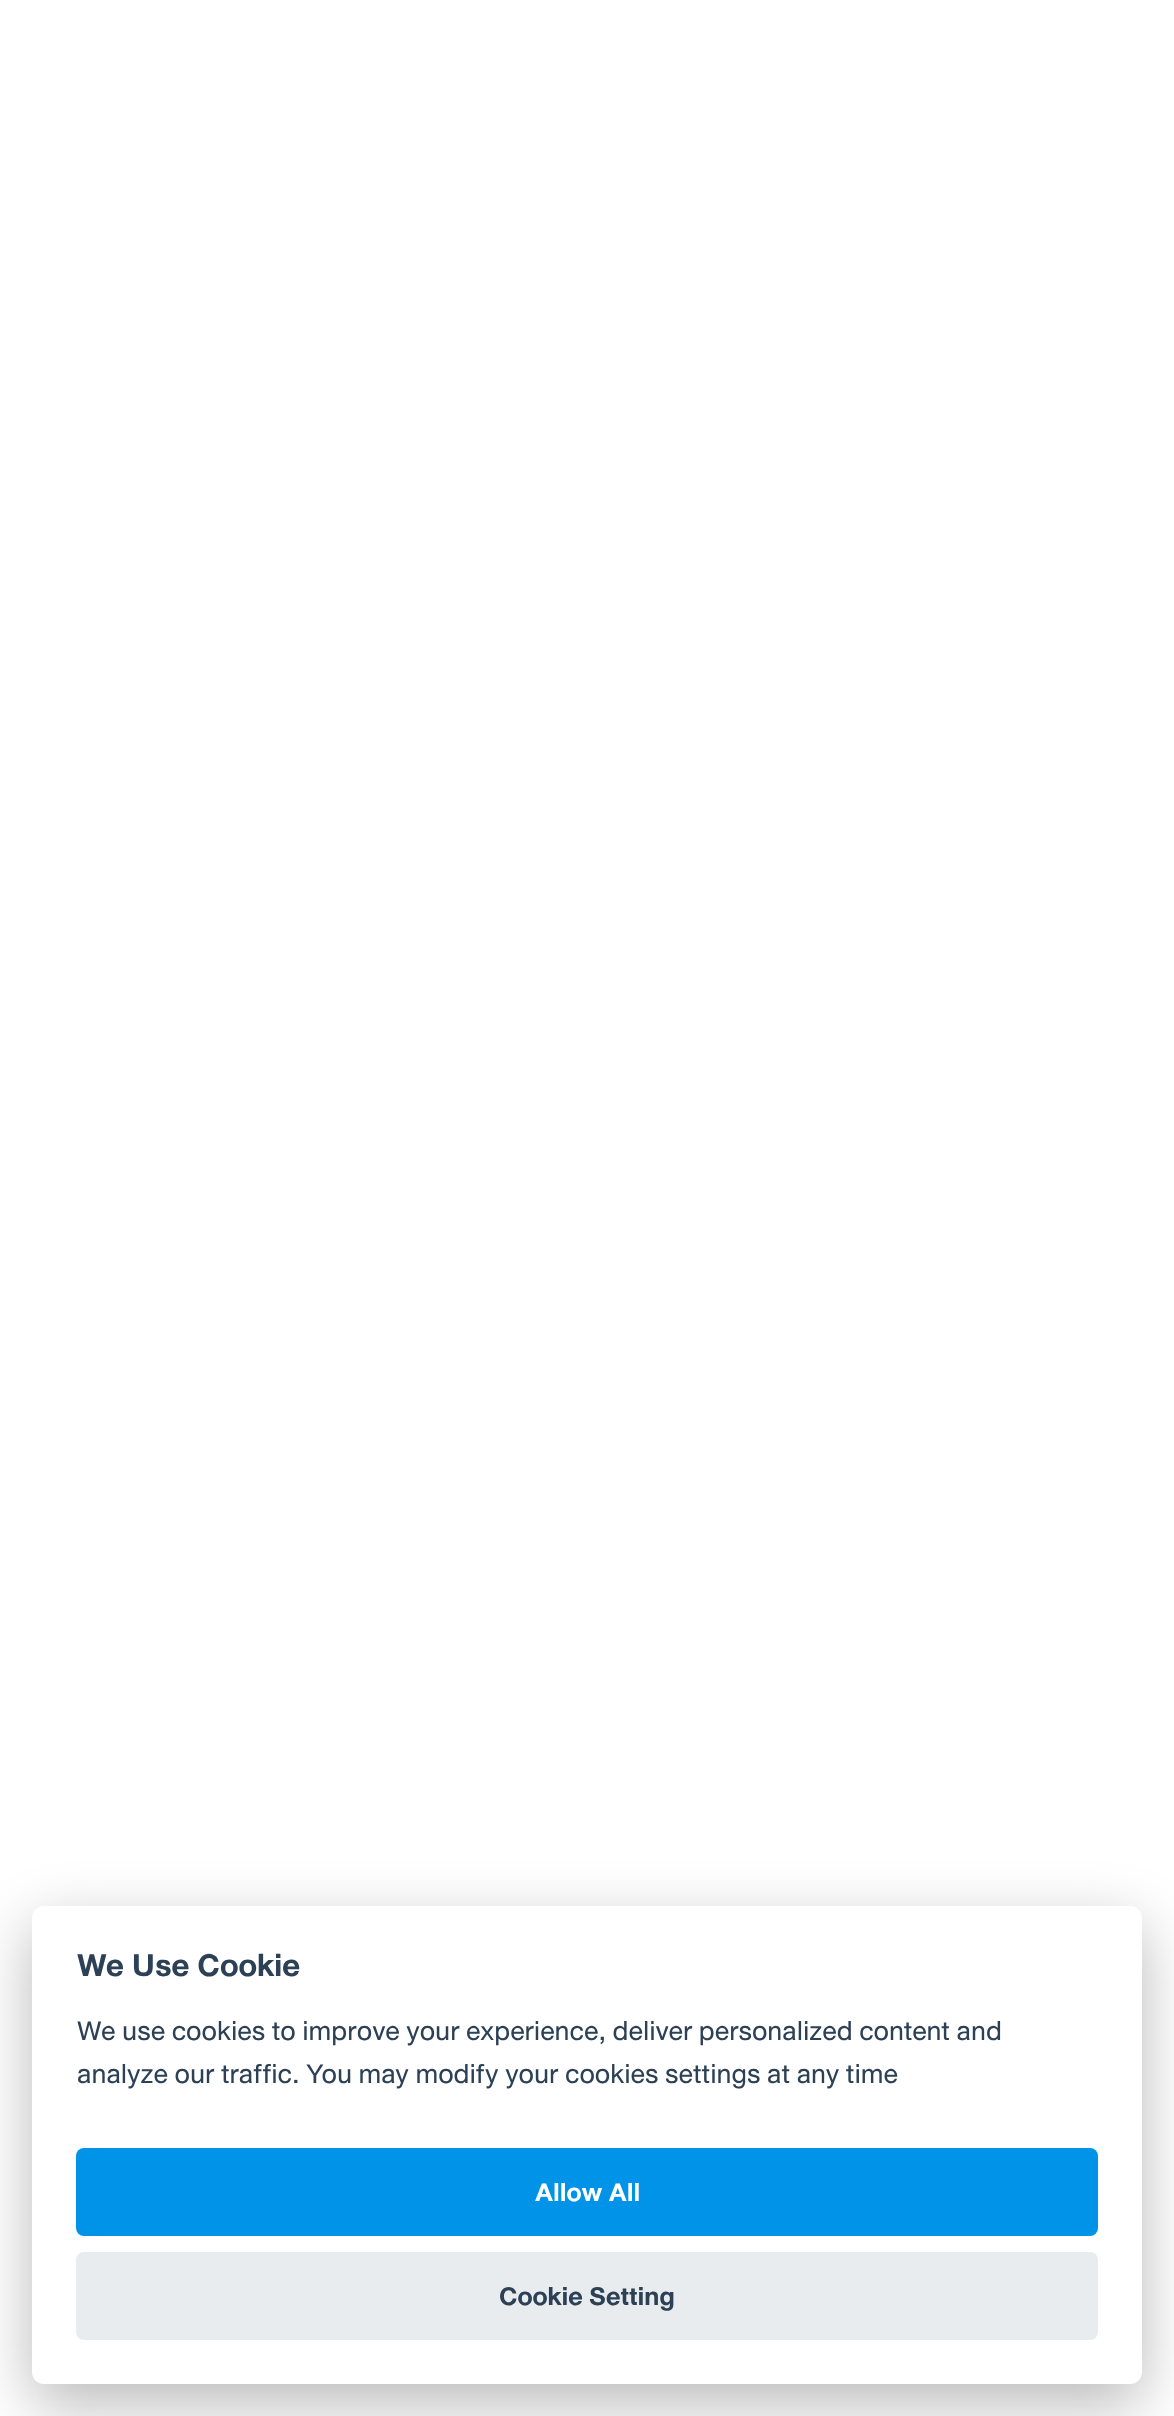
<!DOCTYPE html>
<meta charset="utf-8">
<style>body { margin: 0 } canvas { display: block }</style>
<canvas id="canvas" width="1174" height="2416"></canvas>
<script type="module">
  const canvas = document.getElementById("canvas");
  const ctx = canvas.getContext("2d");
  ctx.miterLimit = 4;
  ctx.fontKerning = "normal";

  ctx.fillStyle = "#ffffff";
  ctx.fillRect(0, 0, 1174, 2416);
  ctx.fillStyle = "rgba(2, 2, 3, 0.28)";
  ctx.filter = "blur(30px)";
  ctx.beginPath();
  ctx.roundRect(32, 1926, 1110, 478, 12);
  ctx.fill();
  ctx.filter = "none";
  ctx.fillStyle = "#ffffff";
  ctx.beginPath();
  ctx.roundRect(32, 1906, 1110, 478, 12);
  ctx.fill();
  ctx.font = "bold 33.5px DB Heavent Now";
  ctx.fillStyle = "#2d4156";
  ctx.fillText("We Use Cookie", 77, 1976);
  ctx.font = "28.8px DB Heavent Now";
  ctx.fillText("We use cookies to improve your experience, deliver personalized content and", 77, 2040);
  ctx.fillText("analyze our traffic. You may modify your cookies settings at any time", 77, 2083);
  ctx.fillStyle = "#0093e8";
  ctx.beginPath();
  ctx.roundRect(76, 2148, 1022, 88, 8);
  ctx.fill();
  ctx.font = "bold 27.25px DB Heavent Now";
  ctx.fillStyle = "#ffffff";
  ctx.fillText("Allow All", 535, 2201);
  ctx.fillStyle = "#e9ecee";
  ctx.beginPath();
  ctx.roundRect(76, 2252, 1022, 88, 8);
  ctx.fill();
  ctx.fillStyle = "#2d4156";
  ctx.fillText("Cookie Setting", 499, 2305);
</script>
